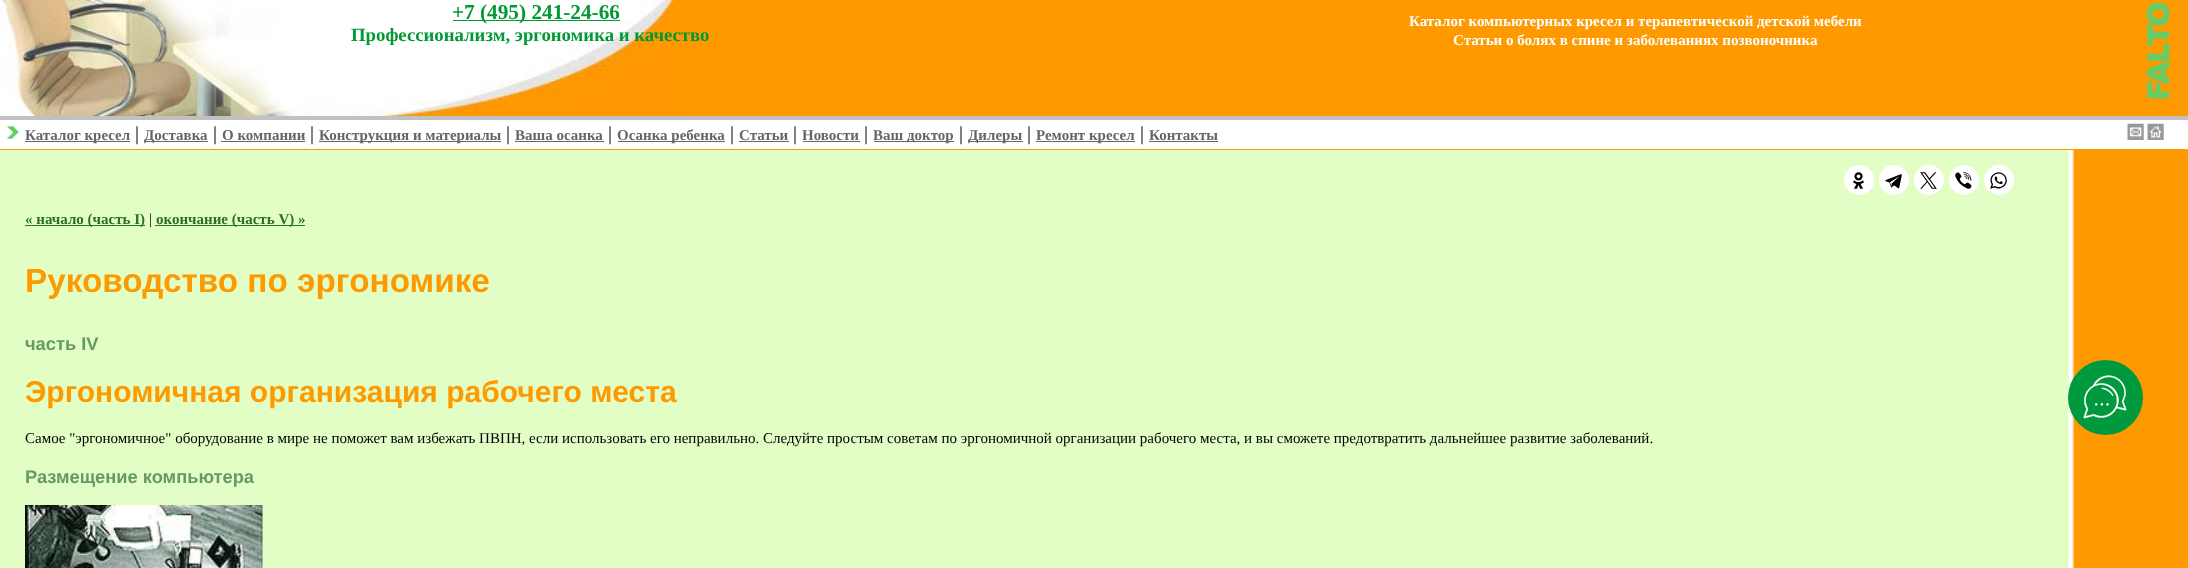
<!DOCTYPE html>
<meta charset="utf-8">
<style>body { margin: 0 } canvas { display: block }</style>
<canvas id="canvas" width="2188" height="568"></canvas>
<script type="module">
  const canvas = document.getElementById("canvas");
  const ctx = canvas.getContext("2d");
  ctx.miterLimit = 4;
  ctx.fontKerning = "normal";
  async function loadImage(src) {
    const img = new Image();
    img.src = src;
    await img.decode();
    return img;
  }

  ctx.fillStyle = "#ff9900";
  ctx.fillRect(0, 0, 2188, 568);
  ctx.drawImage(await loadImage("img1.png"), 0, 0, 674, 116);
  ctx.fillStyle = "#c1c1c1";
  ctx.fillRect(0, 116, 2188, 4);
  ctx.fillStyle = "#009933";
  ctx.fillRect(453, 20, 167, 1);
  ctx.font = "bold 21.25px Liberation Serif";
  ctx.fillText("+7 (495) 241-24-66", 452, 19);
  ctx.font = "bold 18.75px Liberation Serif";
  ctx.fillText("Профессионализм, эргономика и качество", 351, 41);
  ctx.font = "bold 15px Liberation Serif";
  ctx.fillStyle = "#ffffff";
  ctx.fillText("Каталог компьютерных кресел и терапевтической детской мебели", 1409, 26);
  ctx.fillText("Статьи о болях в спине и заболеваниях позвоночника", 1453, 45);
  ctx.drawImage(await loadImage("img2.png"), 2146, 2, 25, 97);
  ctx.fillRect(0, 120, 2188, 29);
  ctx.drawImage(await loadImage("img3.png"), 7, 126, 12, 13);
  ctx.fillStyle = "#666666";
  ctx.fillRect(25, 141, 105, 1);
  ctx.fillText("Каталог кресел", 25, 140);
  ctx.font = "20px Liberation Serif";
  ctx.fillStyle = "#000000";
  ctx.fillText("|", 135, 140);
  ctx.fillStyle = "#666666";
  ctx.fillRect(144, 141, 64, 1);
  ctx.font = "bold 15px Liberation Serif";
  ctx.fillText("Доставка", 144, 140);
  ctx.font = "20px Liberation Serif";
  ctx.fillStyle = "#000000";
  ctx.fillText("|", 213, 140);
  ctx.font = "bold 15px Liberation Serif";
  ctx.fillStyle = "#666666";
  ctx.fillText("О компании", 222, 140);
  ctx.fillRect(221, 141, 84, 1);
  ctx.font = "20px Liberation Serif";
  ctx.fillStyle = "#000000";
  ctx.fillText("|", 310, 140);
  ctx.fillStyle = "#666666";
  ctx.fillRect(319, 141, 182, 1);
  ctx.font = "bold 15px Liberation Serif";
  ctx.fillText("Конструкция и материалы", 319, 140);
  ctx.font = "20px Liberation Serif";
  ctx.fillStyle = "#000000";
  ctx.fillText("|", 506, 140);
  ctx.font = "bold 15px Liberation Serif";
  ctx.fillStyle = "#666666";
  ctx.fillText("Ваша осанка", 515, 140);
  ctx.fillRect(515, 141, 89, 1);
  ctx.font = "20px Liberation Serif";
  ctx.fillStyle = "#000000";
  ctx.fillText("|", 608, 140);
  ctx.fillStyle = "#666666";
  ctx.fillRect(618, 141, 107, 1);
  ctx.font = "bold 15px Liberation Serif";
  ctx.fillText("Осанка ребенка", 617, 140);
  ctx.font = "20px Liberation Serif";
  ctx.fillStyle = "#000000";
  ctx.fillText("|", 730, 140);
  ctx.font = "bold 15px Liberation Serif";
  ctx.fillStyle = "#666666";
  ctx.fillText("Статьи", 739, 140);
  ctx.fillRect(739, 141, 50, 1);
  ctx.font = "20px Liberation Serif";
  ctx.fillStyle = "#000000";
  ctx.fillText("|", 793, 140);
  ctx.font = "bold 15px Liberation Serif";
  ctx.fillStyle = "#666666";
  ctx.fillText("Новости", 802, 140);
  ctx.fillRect(803, 141, 57, 1);
  ctx.font = "20px Liberation Serif";
  ctx.fillStyle = "#000000";
  ctx.fillText("|", 864, 140);
  ctx.fillStyle = "#666666";
  ctx.fillRect(874, 141, 80, 1);
  ctx.font = "bold 15px Liberation Serif";
  ctx.fillText("Ваш доктор", 873, 140);
  ctx.font = "20px Liberation Serif";
  ctx.fillStyle = "#000000";
  ctx.fillText("|", 959, 140);
  ctx.fillStyle = "#666666";
  ctx.fillRect(968, 141, 55, 1);
  ctx.font = "bold 15px Liberation Serif";
  ctx.fillText("Дилеры", 968, 140);
  ctx.font = "20px Liberation Serif";
  ctx.fillStyle = "#000000";
  ctx.fillText("|", 1027, 140);
  ctx.fillStyle = "#666666";
  ctx.fillRect(1036, 141, 99, 1);
  ctx.font = "bold 15px Liberation Serif";
  ctx.fillText("Ремонт кресел", 1036, 140);
  ctx.font = "20px Liberation Serif";
  ctx.fillStyle = "#000000";
  ctx.fillText("|", 1140, 140);
  ctx.font = "bold 15px Liberation Serif";
  ctx.fillStyle = "#666666";
  ctx.fillText("Контакты", 1149, 140);
  ctx.fillRect(1149, 141, 69, 1);
  ctx.drawImage(await loadImage("img4.png"), 2127, 123, 17, 17);
  ctx.drawImage(await loadImage("img5.png"), 2147, 123, 17, 17);
  ctx.fillStyle = "#e2fec5";
  ctx.fillRect(0, 150, 1838, 418);
  ctx.drawImage(await loadImage("img6.png"), 1837, 150, 351, 418);
  ctx.fillStyle = "#ffffff";
  ctx.beginPath();
  ctx.arc(1859, 180, 15, 0, Math.PI * 2);
  ctx.fill();
  ctx.drawImage(await loadImage("img7.png"), 1853, 172, 12, 17);
  ctx.beginPath();
  ctx.arc(1894, 180, 15, 0, Math.PI * 2);
  ctx.fill();
  ctx.drawImage(await loadImage("img8.png"), 1885, 174, 17, 15);
  ctx.beginPath();
  ctx.arc(1929, 180, 15, 0, Math.PI * 2);
  ctx.fill();
  ctx.drawImage(await loadImage("img9.png"), 1920, 172, 17, 17);
  ctx.beginPath();
  ctx.arc(1964, 180, 15, 0, Math.PI * 2);
  ctx.fill();
  ctx.drawImage(await loadImage("img10.png"), 1955, 172, 17, 17);
  ctx.beginPath();
  ctx.arc(1999, 180, 15, 0, Math.PI * 2);
  ctx.fill();
  ctx.drawImage(await loadImage("img11.png"), 1990, 172, 17, 17);
  ctx.fillStyle = "#2b6f2a";
  ctx.fillRect(25, 225, 120, 1);
  ctx.fillText("« начало (часть I)", 25, 224);
  ctx.font = "15px Liberation Serif";
  ctx.fillStyle = "#000000";
  ctx.fillText("|", 149, 224);
  ctx.fillStyle = "#2b6f2a";
  ctx.fillRect(155, 225, 150, 1);
  ctx.font = "bold 15px Liberation Serif";
  ctx.fillText("окончание (часть V) »", 156, 224);
  ctx.font = "bold 33.3px Liberation Sans";
  ctx.fillStyle = "#ff9900";
  ctx.fillText("Руководство по эргономике", 25, 292);
  ctx.font = "bold 18.3px Liberation Sans";
  ctx.fillStyle = "#669966";
  ctx.fillText("часть IV", 25, 350);
  ctx.font = "bold 30px Liberation Sans";
  ctx.fillStyle = "#ff9900";
  ctx.fillText("Эргономичная организация рабочего места", 25, 402);
  ctx.font = "15px Liberation Serif";
  ctx.fillStyle = "#000000";
  ctx.fillText("Самое \"эргономичное\" оборудование в мире не поможет вам избежать ПВПН, если использовать его неправильно. Следуйте простым советам по эргономичной организации рабочего места, и вы сможете предотвратить дальнейшее развитие заболеваний.", 25, 443);
  ctx.font = "bold 18.3px Liberation Sans";
  ctx.fillStyle = "#669966";
  ctx.fillText("Размещение компьютера", 25, 483);
  ctx.drawImage(await loadImage("img12.png"), 25, 505, 238, 63);
  ctx.fillStyle = "#00993d";
  ctx.beginPath();
  ctx.arc(2105.5, 397.5, 37.5, 0, Math.PI * 2);
  ctx.fill();
  ctx.drawImage(await loadImage("img13.png"), 2083, 375, 44, 44);
</script>
